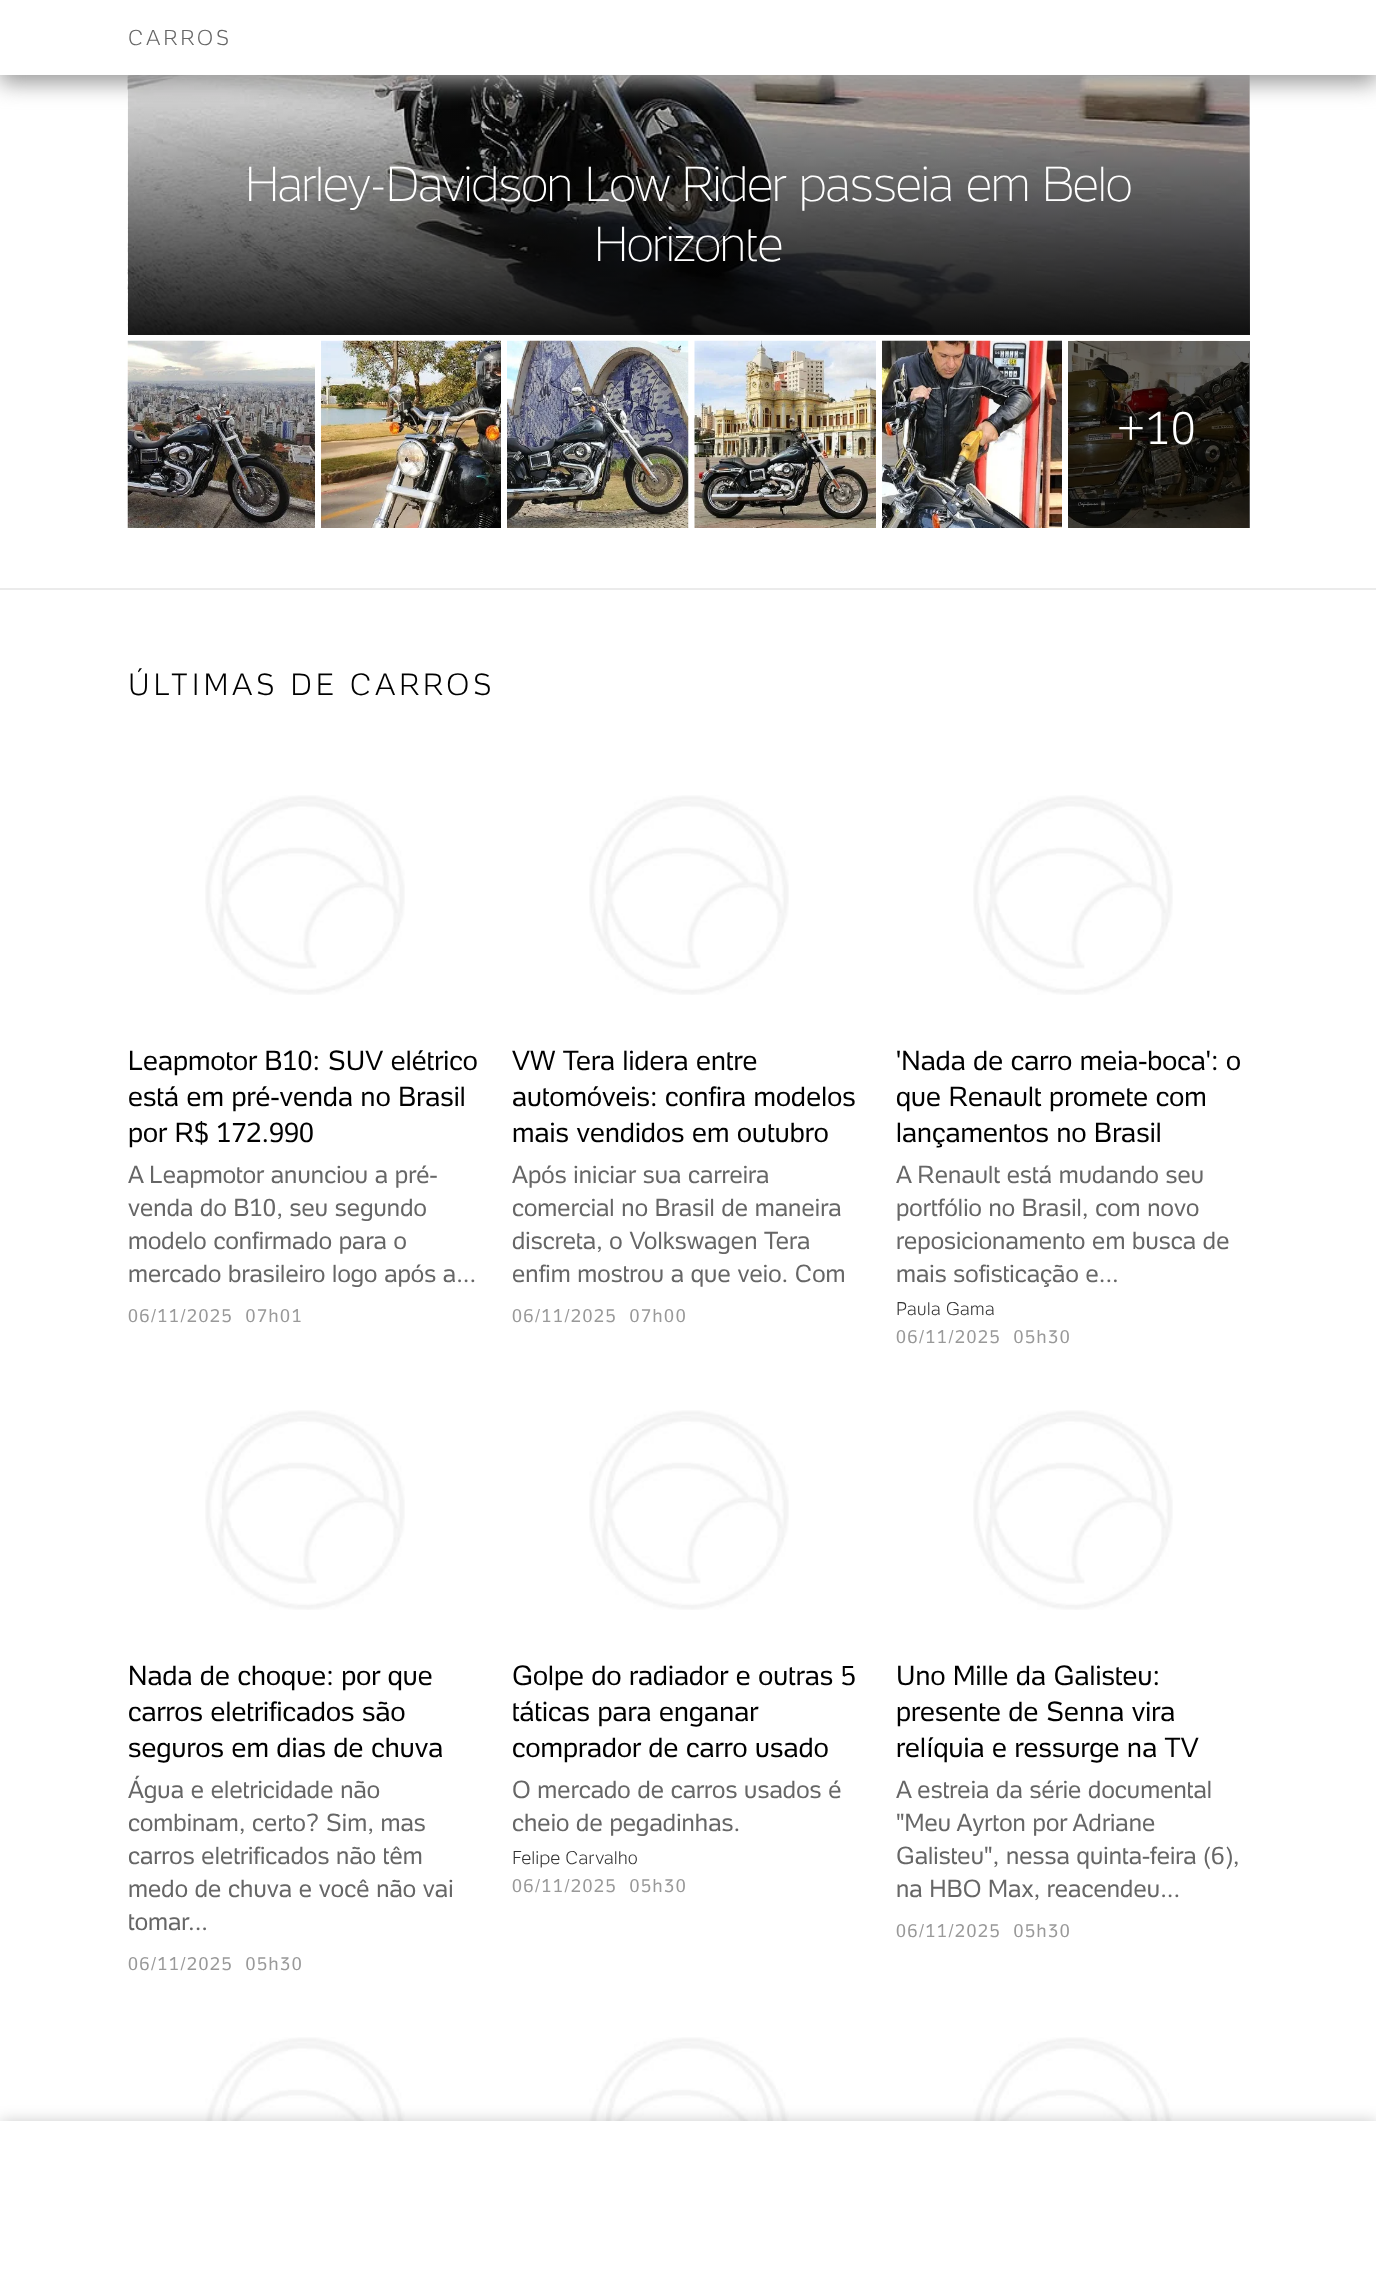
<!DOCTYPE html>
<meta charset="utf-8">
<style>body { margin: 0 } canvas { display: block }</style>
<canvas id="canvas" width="1376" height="2271"></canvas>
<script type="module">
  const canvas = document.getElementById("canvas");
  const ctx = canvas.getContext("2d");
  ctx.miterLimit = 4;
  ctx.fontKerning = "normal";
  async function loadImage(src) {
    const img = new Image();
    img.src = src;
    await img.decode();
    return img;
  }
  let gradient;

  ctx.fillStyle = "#ffffff";
  ctx.fillRect(0, 0, 1376, 2271);
  ctx.fillStyle = "#666666";
  ctx.fillRect(1249, 341, 1, 187);
  ctx.drawImage(await loadImage("img1.png"), 127, 75, 1123, 260);
  gradient = ctx.createLinearGradient(689, 335, 689, -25);
  gradient.addColorStop(0, "rgba(0, 0, 0, 0.9)");
  gradient.addColorStop(0.6, "rgba(0, 0, 0, 0.2)");
  gradient.addColorStop(1, "rgba(0, 0, 0, 0)");
  ctx.fillStyle = gradient;
  ctx.fillRect(128, 75, 1122, 260);
  ctx.fillStyle = "#999999";
  ctx.filter = "blur(11px)";
  ctx.beginPath();
  ctx.rect(0, 8, 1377, 75);
  ctx.fill();
  ctx.filter = "none";
  ctx.fillStyle = "#ffffff";
  ctx.fillRect(0, 0, 1376, 75);
  ctx.letterSpacing = "3px";
  ctx.font = "300 21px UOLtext";
  ctx.fillStyle = "#666666";
  ctx.fillText("CARROS", 128, 45);
  ctx.letterSpacing = "0px";
  ctx.font = "100 48px UOLtext";
  ctx.fillStyle = "#ffffff";
  ctx.fillText("Harley-Davidson Low Rider passeia em Belo", 246, 201);
  ctx.fillText("Horizonte", 595, 261);
  ctx.drawImage(await loadImage("img2.png"), 127, 340, 188, 188);
  ctx.drawImage(await loadImage("img3.png"), 321, 340, 180, 188);
  ctx.drawImage(await loadImage("img4.png"), 507, 340, 182, 188);
  ctx.drawImage(await loadImage("img5.png"), 694, 340, 182, 188);
  ctx.drawImage(await loadImage("img6.png"), 882, 340, 180, 188);
  ctx.drawImage(await loadImage("img7.png"), 1068, 340, 182, 188);
  ctx.font = "300 45px UOLtext";
  ctx.fillText("+10", 1116, 444);
  ctx.fillStyle = "#ebebeb";
  ctx.fillRect(0, 588, 1376, 2);
  ctx.letterSpacing = "3.75px";
  ctx.font = "300 30px UOLtext";
  ctx.fillStyle = "#000000";
  ctx.fillText("ÚLTIMAS DE CARROS", 128, 695);
  ctx.drawImage(await loadImage("img8.png"), 205, 795, 200, 200);
  ctx.letterSpacing = "0px";
  ctx.font = "27px UOLtext";
  ctx.fillText("Leapmotor B10: SUV elétrico", 128, 1070);
  ctx.fillText("está em pré-venda no Brasil", 128, 1106);
  ctx.fillText("por R$ 172.990", 128, 1142);
  ctx.font = "24px UOLtext";
  ctx.fillStyle = "#666666";
  ctx.fillText("A Leapmotor anunciou a pré-", 128, 1183);
  ctx.fillText("venda do B10, seu segundo", 128, 1216);
  ctx.fillText("modelo confirmado para o", 128, 1249);
  ctx.fillText("mercado brasileiro logo após a...", 128, 1282);
  ctx.letterSpacing = "1.5px";
  ctx.wordSpacing = "6px";
  ctx.font = "18px UOLtext";
  ctx.fillStyle = "#999999";
  ctx.fillText("06/11/2025 07h01", 128, 1322);
  ctx.drawImage(await loadImage("img8.png"), 589, 795, 200, 200);
  ctx.letterSpacing = "0px";
  ctx.wordSpacing = "0px";
  ctx.font = "27px UOLtext";
  ctx.fillStyle = "#000000";
  ctx.fillText("VW Tera lidera entre", 512, 1070);
  ctx.fillText("automóveis: confira modelos", 512, 1106);
  ctx.fillText("mais vendidos em outubro", 512, 1142);
  ctx.font = "24px UOLtext";
  ctx.fillStyle = "#666666";
  ctx.fillText("Após iniciar sua carreira", 512, 1183);
  ctx.fillText("comercial no Brasil de maneira", 512, 1216);
  ctx.fillText("discreta, o Volkswagen Tera", 512, 1249);
  ctx.fillText("enfim mostrou a que veio. Com", 512, 1282);
  ctx.letterSpacing = "1.5px";
  ctx.wordSpacing = "6px";
  ctx.font = "18px UOLtext";
  ctx.fillStyle = "#999999";
  ctx.fillText("06/11/2025 07h00", 512, 1322);
  ctx.drawImage(await loadImage("img8.png"), 973, 795, 200, 200);
  ctx.letterSpacing = "0px";
  ctx.wordSpacing = "0px";
  ctx.font = "27px UOLtext";
  ctx.fillStyle = "#000000";
  ctx.fillText("'Nada de carro meia-boca': o", 896, 1070);
  ctx.fillText("que Renault promete com", 896, 1106);
  ctx.fillText("lançamentos no Brasil", 896, 1142);
  ctx.font = "24px UOLtext";
  ctx.fillStyle = "#666666";
  ctx.fillText("A Renault está mudando seu", 896, 1183);
  ctx.fillText("portfólio no Brasil, com novo", 896, 1216);
  ctx.fillText("reposicionamento em busca de", 896, 1249);
  ctx.fillText("mais sofisticação e...", 896, 1282);
  ctx.font = "300 18px UOLtext";
  ctx.fillStyle = "#333333";
  ctx.fillText("Paula Gama", 896, 1315);
  ctx.letterSpacing = "1.5px";
  ctx.wordSpacing = "6px";
  ctx.font = "18px UOLtext";
  ctx.fillStyle = "#999999";
  ctx.fillText("06/11/2025 05h30", 896, 1343);
  ctx.drawImage(await loadImage("img9.png"), 205, 1410, 200, 200);
  ctx.letterSpacing = "0px";
  ctx.wordSpacing = "0px";
  ctx.font = "27px UOLtext";
  ctx.fillStyle = "#000000";
  ctx.fillText("Nada de choque: por que", 128, 1685);
  ctx.fillText("carros eletrificados são", 128, 1721);
  ctx.fillText("seguros em dias de chuva", 128, 1757);
  ctx.font = "24px UOLtext";
  ctx.fillStyle = "#666666";
  ctx.fillText("Água e eletricidade não", 128, 1798);
  ctx.fillText("combinam, certo? Sim, mas", 128, 1831);
  ctx.fillText("carros eletrificados não têm", 128, 1864);
  ctx.fillText("medo de chuva e você não vai", 128, 1897);
  ctx.fillText("tomar...", 128, 1930);
  ctx.letterSpacing = "1.5px";
  ctx.wordSpacing = "6px";
  ctx.font = "18px UOLtext";
  ctx.fillStyle = "#999999";
  ctx.fillText("06/11/2025 05h30", 128, 1970);
  ctx.drawImage(await loadImage("img9.png"), 589, 1410, 200, 200);
  ctx.letterSpacing = "0px";
  ctx.wordSpacing = "0px";
  ctx.font = "27px UOLtext";
  ctx.fillStyle = "#000000";
  ctx.fillText("Golpe do radiador e outras 5", 512, 1685);
  ctx.fillText("táticas para enganar", 512, 1721);
  ctx.fillText("comprador de carro usado", 512, 1757);
  ctx.font = "24px UOLtext";
  ctx.fillStyle = "#666666";
  ctx.fillText("O mercado de carros usados é", 512, 1798);
  ctx.fillText("cheio de pegadinhas.", 512, 1831);
  ctx.font = "300 18px UOLtext";
  ctx.fillStyle = "#333333";
  ctx.fillText("Felipe Carvalho", 512, 1864);
  ctx.letterSpacing = "1.5px";
  ctx.wordSpacing = "6px";
  ctx.font = "18px UOLtext";
  ctx.fillStyle = "#999999";
  ctx.fillText("06/11/2025 05h30", 512, 1892);
  ctx.drawImage(await loadImage("img9.png"), 973, 1410, 200, 200);
  ctx.letterSpacing = "0px";
  ctx.wordSpacing = "0px";
  ctx.font = "27px UOLtext";
  ctx.fillStyle = "#000000";
  ctx.fillText("Uno Mille da Galisteu:", 896, 1685);
  ctx.fillText("presente de Senna vira", 896, 1721);
  ctx.fillText("relíquia e ressurge na TV", 896, 1757);
  ctx.font = "24px UOLtext";
  ctx.fillStyle = "#666666";
  ctx.fillText("A estreia da série documental", 896, 1798);
  ctx.fillText("\"Meu Ayrton por Adriane", 896, 1831);
  ctx.fillText("Galisteu\", nessa quinta-feira (6),", 896, 1864);
  ctx.fillText("na HBO Max, reacendeu...", 896, 1897);
  ctx.letterSpacing = "1.5px";
  ctx.wordSpacing = "6px";
  ctx.font = "18px UOLtext";
  ctx.fillStyle = "#999999";
  ctx.fillText("06/11/2025 05h30", 896, 1937);
  ctx.drawImage(await loadImage("img10.png"), 205, 2037, 200, 84);
  ctx.drawImage(await loadImage("img10.png"), 589, 2037, 200, 84);
  ctx.drawImage(await loadImage("img10.png"), 973, 2037, 200, 84);
  ctx.fillStyle = "rgba(0, 0, 0, 0.2)";
  ctx.filter = "blur(7.5px)";
  ctx.beginPath();
  ctx.rect(0, 2121, 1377, 150);
  ctx.fill();
  ctx.filter = "none";
  ctx.fillStyle = "#ffffff";
  ctx.fillRect(0, 2121, 1376, 150);
</script>
